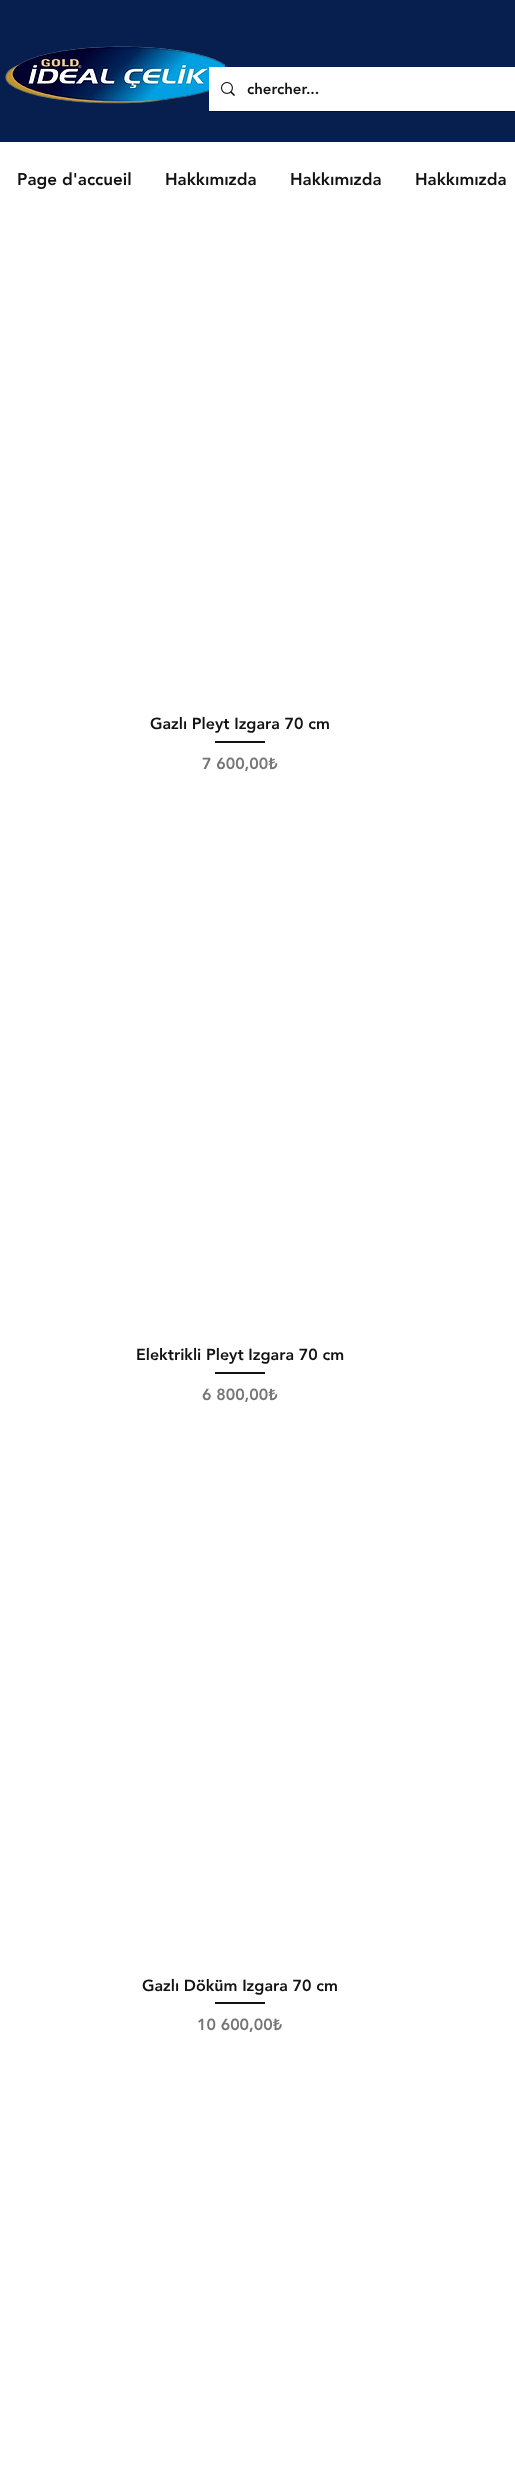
<!DOCTYPE html>
<meta charset="utf-8">
<style>body { margin: 0 } canvas { display: block }</style>
<canvas id="canvas" width="515" height="2489"></canvas>
<script type="module">
  const canvas = document.getElementById("canvas");
  const ctx = canvas.getContext("2d");
  ctx.miterLimit = 4;
  ctx.fontKerning = "normal";
  async function loadImage(src) {
    const img = new Image();
    img.src = src;
    await img.decode();
    return img;
  }

  ctx.fillStyle = "#ffffff";
  ctx.fillRect(0, 0, 515, 2489);
  ctx.fillStyle = "#071f4e";
  ctx.fillRect(0, 0, 515, 142);
  ctx.drawImage(await loadImage("img1.png"), 5, 46, 220, 58);
  ctx.fillStyle = "#121212";
  ctx.fillRect(209, 111, 306, 1);
  ctx.fillStyle = "#ffffff";
  ctx.fillRect(209, 67, 306, 44);
  ctx.drawImage(await loadImage("img2.png"), 221, 82, 14, 14);
  ctx.font = "900 15px 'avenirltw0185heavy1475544'";
  ctx.fillStyle = "#121212";
  ctx.fillText("chercher...", 247, 94);
  ctx.font = "900 17px 'avenirltw0185heavy1475544'";
  ctx.fillText("Page d'accueil", 17, 185);
  ctx.fillText("Hakkımızda", 165, 185);
  ctx.fillText("Hakkımızda", 290, 185);
  ctx.fillText("Hakkımızda", 415, 185);
  ctx.font = "900 16px 'avenirltw0185heavy1475544'";
  ctx.fillText("Gazlı Pleyt Izgara 70 cm", 150, 729);
  ctx.fillRect(215, 741, 50, 2);
  ctx.fillStyle = "#757575";
  ctx.fillText("7 600,00₺", 202, 769);
  ctx.fillStyle = "#121212";
  ctx.fillText("Elektrikli Pleyt Izgara 70 cm", 136, 1360);
  ctx.fillRect(215, 1372, 50, 2);
  ctx.fillStyle = "#757575";
  ctx.fillText("6 800,00₺", 202, 1400);
  ctx.fillStyle = "#121212";
  ctx.fillText("Gazlı Döküm Izgara 70 cm", 142, 1991);
  ctx.fillRect(215, 2002, 50, 2);
  ctx.fillStyle = "#757575";
  ctx.fillText("10 600,00₺", 197, 2030);
</script>
